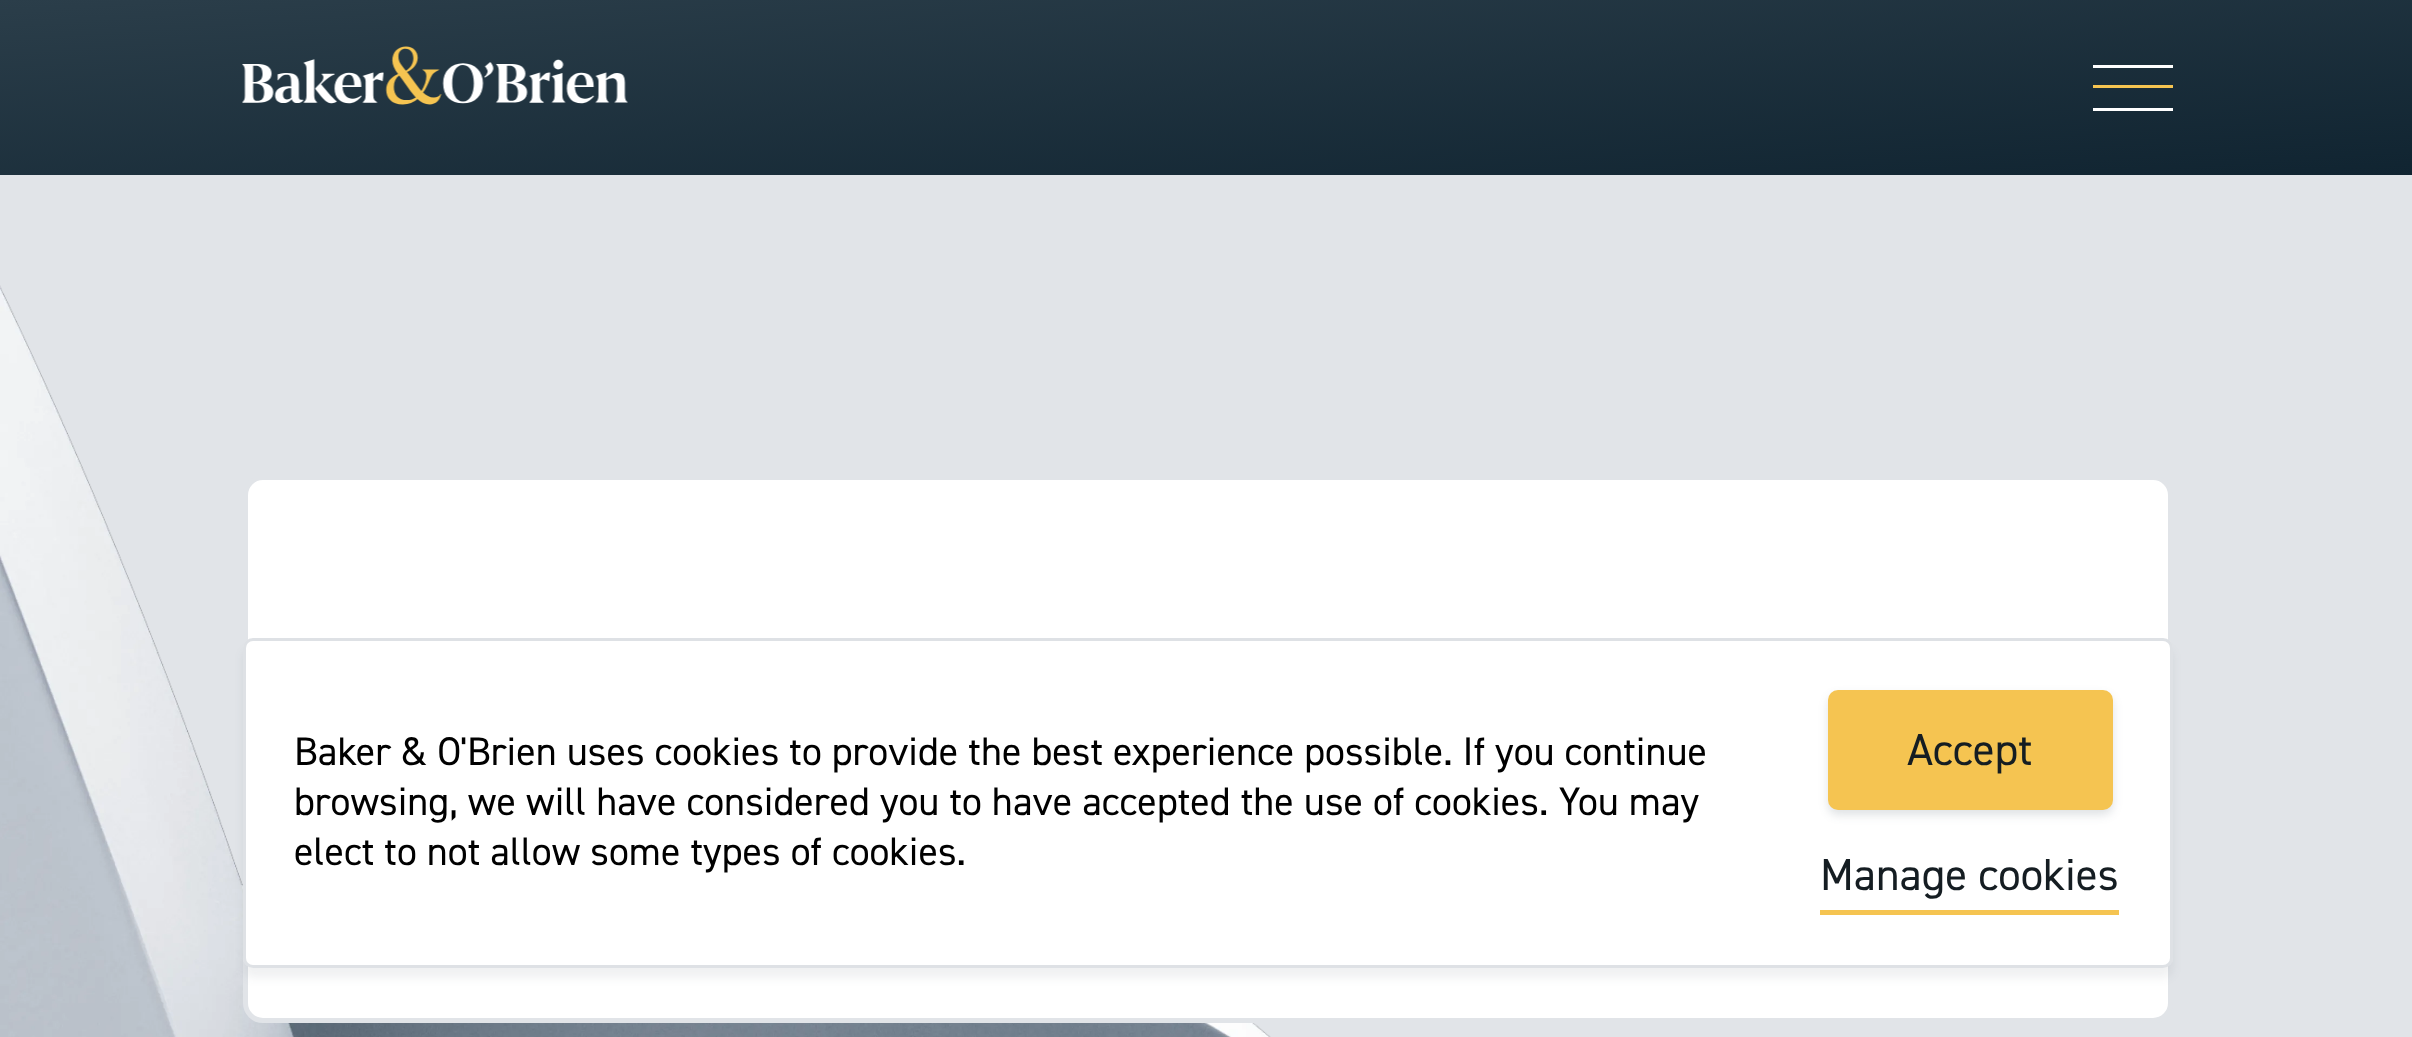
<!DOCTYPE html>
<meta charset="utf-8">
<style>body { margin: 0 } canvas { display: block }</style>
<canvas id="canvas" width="2412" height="1037"></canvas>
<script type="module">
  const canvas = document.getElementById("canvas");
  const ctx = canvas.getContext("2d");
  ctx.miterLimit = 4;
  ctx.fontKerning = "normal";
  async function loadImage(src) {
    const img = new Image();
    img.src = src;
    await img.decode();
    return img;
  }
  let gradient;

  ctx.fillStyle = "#e1e4e8";
  ctx.fillRect(0, 0, 2412, 1037);
  gradient = ctx.createLinearGradient(1194, -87, 1219, 262);
  gradient.addColorStop(0, "#2b3e4a");
  gradient.addColorStop(1, "#102431");
  ctx.fillStyle = gradient;
  ctx.fillRect(0, 0, 2412, 175);
  ctx.drawImage(await loadImage("img1.png"), 242, 46, 386, 59);
  ctx.fillStyle = "#ffffff";
  ctx.fillRect(2093, 65, 80, 3);
  ctx.fillStyle = "#f5c451";
  ctx.fillRect(2093, 85, 80, 3);
  ctx.fillStyle = "#ffffff";
  ctx.fillRect(2093, 108, 80, 3);
  ctx.drawImage(await loadImage("img2.png"), 0, 285, 1271, 752);
  ctx.beginPath();
  ctx.roundRect(245.5, 477.5, 1925, 543, 17.5);
  ctx.fill();
  ctx.strokeStyle = "#e1e4e8";
  ctx.lineWidth = 5;
  ctx.stroke();
  ctx.fillStyle = "rgba(43, 62, 74, 0.07)";
  ctx.filter = "blur(5px)";
  ctx.beginPath();
  ctx.roundRect(243, 648, 1930, 330, 10);
  ctx.fill();
  ctx.filter = "none";
  ctx.fillStyle = "#ffffff";
  ctx.beginPath();
  ctx.roundRect(243, 638, 1930, 330, 10);
  ctx.fill();
  ctx.beginPath();
  ctx.roundRect(244.5, 639.5, 1927, 327, 8.5);
  ctx.strokeStyle = "rgba(146, 156, 170, 0.3)";
  ctx.lineWidth = 3;
  ctx.stroke();
  ctx.font = "40px 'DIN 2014'";
  ctx.fillStyle = "#000000";
  ctx.fillText("Baker & O'Brien uses cookies to provide the best experience possible. If you continue", 294, 765);
  ctx.fillText("browsing, we will have considered you to have accepted the use of cookies. You may", 294, 815);
  ctx.fillText("elect to not allow some types of cookies.", 294, 865);
  ctx.fillStyle = "rgba(43, 62, 74, 0.15)";
  ctx.filter = "blur(5px)";
  ctx.beginPath();
  ctx.roundRect(1828, 695, 285, 120, 10);
  ctx.fill();
  ctx.filter = "none";
  ctx.fillStyle = "#f5c451";
  ctx.beginPath();
  ctx.roundRect(1828, 690, 285, 120, 10);
  ctx.fill();
  ctx.font = "45px 'DIN 2014'";
  ctx.fillStyle = "#151d22";
  ctx.fillText("Accept", 1907, 765);
  ctx.fillText("Manage cookies", 1820, 890);
  ctx.fillStyle = "#f5c451";
  ctx.fillRect(1820, 910, 299, 5);
</script>
